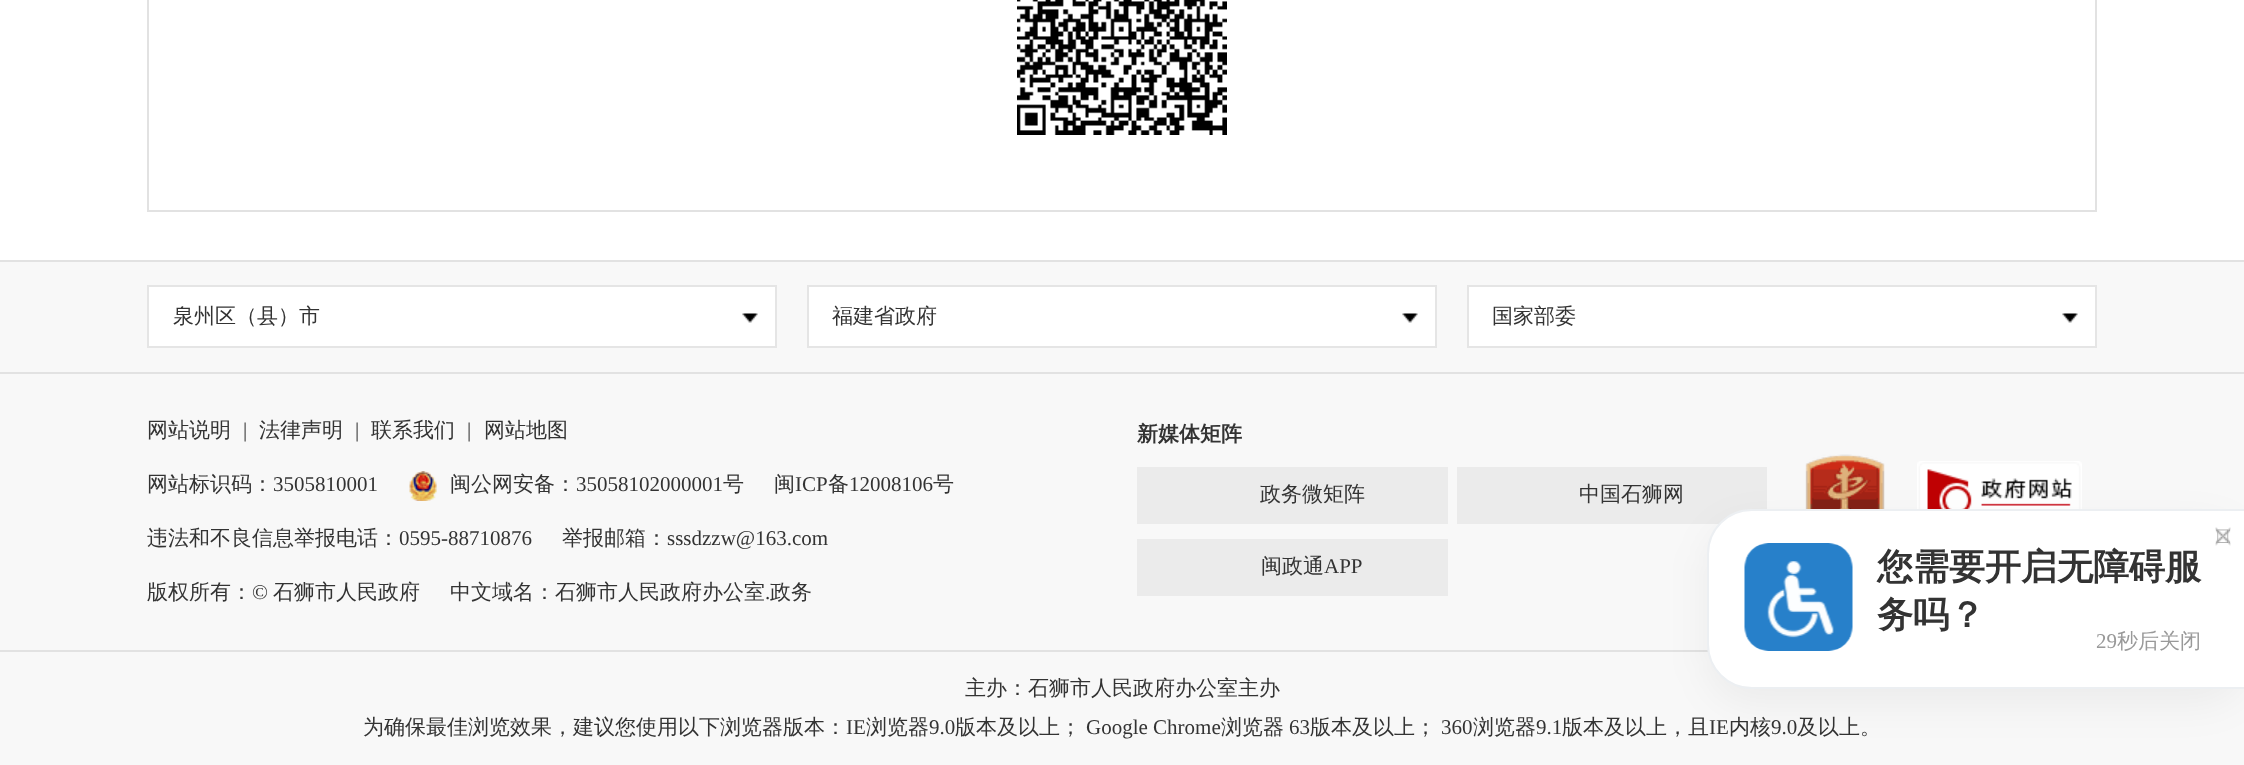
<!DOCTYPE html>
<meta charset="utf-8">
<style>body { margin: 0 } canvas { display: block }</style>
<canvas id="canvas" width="2244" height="765"></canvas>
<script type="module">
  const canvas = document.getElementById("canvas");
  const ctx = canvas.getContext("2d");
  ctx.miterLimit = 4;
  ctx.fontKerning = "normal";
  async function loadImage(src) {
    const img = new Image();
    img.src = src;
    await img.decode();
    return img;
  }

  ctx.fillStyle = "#ffffff";
  ctx.fillRect(0, 0, 2244, 765);
  ctx.strokeStyle = "#e2e2e2";
  ctx.lineWidth = 2;
  ctx.strokeRect(148, -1, 1948, 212);
  ctx.drawImage(await loadImage("img1.png"), 1017, 0, 210, 135);
  ctx.fillStyle = "#f8f8f8";
  ctx.fillRect(0, 262, 2244, 503);
  ctx.fillStyle = "#e2e2e2";
  ctx.fillRect(0, 260, 2244, 2);
  ctx.fillStyle = "#ffffff";
  ctx.beginPath();
  ctx.rect(148, 286, 628, 61);
  ctx.fill();
  ctx.strokeStyle = "#e5e5e5";
  ctx.stroke();
  ctx.font = "500 21px WenQuanYi Zen Hei";
  ctx.fillStyle = "#333333";
  ctx.fillText("泉州区（县）市", 173, 323);
  ctx.drawImage(await loadImage("img2.png"), 742, 313, 16, 10);
  ctx.fillStyle = "#ffffff";
  ctx.beginPath();
  ctx.rect(808, 286, 628, 61);
  ctx.fill();
  ctx.stroke();
  ctx.fillStyle = "#333333";
  ctx.fillText("福建省政府", 832, 323);
  ctx.drawImage(await loadImage("img2.png"), 1402, 313, 16, 10);
  ctx.fillStyle = "#ffffff";
  ctx.beginPath();
  ctx.rect(1468, 286, 628, 61);
  ctx.fill();
  ctx.stroke();
  ctx.fillStyle = "#333333";
  ctx.fillText("国家部委", 1492, 323);
  ctx.drawImage(await loadImage("img2.png"), 2062, 313, 16, 10);
  ctx.fillStyle = "#e2e2e2";
  ctx.fillRect(0, 372, 2244, 2);
  ctx.fillStyle = "#333333";
  ctx.fillText("网站说明", 147, 437);
  ctx.font = "21px Liberation Serif";
  ctx.fillText("|", 243, 437);
  ctx.font = "500 21px WenQuanYi Zen Hei";
  ctx.fillText("法律声明", 259, 437);
  ctx.font = "21px Liberation Serif";
  ctx.fillText("|", 355, 437);
  ctx.font = "500 21px WenQuanYi Zen Hei";
  ctx.fillText("联系我们", 371, 437);
  ctx.font = "21px Liberation Serif";
  ctx.fillText("|", 467, 437);
  ctx.font = "500 21px WenQuanYi Zen Hei";
  ctx.fillText("网站地图", 484, 437);
  ctx.fillText("网站标识码：", 147, 491);
  ctx.font = "21px Liberation Serif";
  ctx.fillText("3505810001", 273, 491);
  ctx.drawImage(await loadImage("img3.png"), 409, 471, 28, 30);
  ctx.font = "500 21px WenQuanYi Zen Hei";
  ctx.fillText("闽公网安备：", 450, 491);
  ctx.font = "21px Liberation Serif";
  ctx.fillText("35058102000001", 576, 491);
  ctx.font = "500 21px WenQuanYi Zen Hei";
  ctx.fillText("号", 723, 491);
  ctx.fillText("闽", 774, 491);
  ctx.font = "21px Liberation Serif";
  ctx.fillText("ICP", 795, 491);
  ctx.font = "500 21px WenQuanYi Zen Hei";
  ctx.fillText("备", 828, 491);
  ctx.font = "21px Liberation Serif";
  ctx.fillText("12008106", 849, 491);
  ctx.font = "500 21px WenQuanYi Zen Hei";
  ctx.fillText("号", 933, 491);
  ctx.fillText("违法和不良信息举报电话：", 147, 545);
  ctx.font = "21px Liberation Serif";
  ctx.fillText("0595-88710876", 399, 545);
  ctx.font = "500 21px WenQuanYi Zen Hei";
  ctx.fillText("举报邮箱：", 562, 545);
  ctx.font = "21px Liberation Serif";
  ctx.fillText("sssdzzw@163.com", 667, 545);
  ctx.font = "500 21px WenQuanYi Zen Hei";
  ctx.fillText("版权所有：", 147, 599);
  ctx.font = "21px Liberation Serif";
  ctx.fillText("©", 252, 599);
  ctx.font = "500 21px WenQuanYi Zen Hei";
  ctx.fillText("石狮市人民政府", 273, 599);
  ctx.fillText("中文域名：石狮市人民政府办公室", 450, 599);
  ctx.font = "21px Liberation Serif";
  ctx.fillText(".", 765, 599);
  ctx.font = "500 21px WenQuanYi Zen Hei";
  ctx.fillText("政务", 770, 599);
  ctx.font = "bold 21px WenQuanYi Zen Hei";
  ctx.fillText("新媒体矩阵", 1137, 441);
  ctx.fillStyle = "#ebebeb";
  ctx.fillRect(1137, 467, 311, 57);
  ctx.font = "500 21px WenQuanYi Zen Hei";
  ctx.fillStyle = "#333333";
  ctx.fillText("政务微矩阵", 1260, 501);
  ctx.fillStyle = "#ebebeb";
  ctx.fillRect(1457, 467, 310, 57);
  ctx.fillStyle = "#333333";
  ctx.fillText("中国石狮网", 1579, 501);
  ctx.fillStyle = "#ebebeb";
  ctx.fillRect(1137, 539, 311, 57);
  ctx.fillStyle = "#333333";
  ctx.fillText("闽政通", 1261, 573);
  ctx.font = "21px Liberation Serif";
  ctx.fillText("APP", 1324, 573);
  ctx.drawImage(await loadImage("img4.png"), 1805, 454, 80, 55);
  ctx.drawImage(await loadImage("img5.png"), 1917, 461, 165, 48);
  ctx.fillStyle = "#e2e2e2";
  ctx.fillRect(0, 650, 1708, 2);
  ctx.font = "500 21px WenQuanYi Zen Hei";
  ctx.fillStyle = "#333333";
  ctx.fillText("主办：石狮市人民政府办公室主办", 965, 695);
  ctx.fillText("为确保最佳浏览效果，建议您使用以下浏览器版本：", 363, 734);
  ctx.font = "21px Liberation Serif";
  ctx.fillText("IE", 846, 734);
  ctx.font = "500 21px WenQuanYi Zen Hei";
  ctx.fillText("浏览器", 866, 734);
  ctx.font = "21px Liberation Serif";
  ctx.fillText("9.0", 929, 734);
  ctx.font = "500 21px WenQuanYi Zen Hei";
  ctx.fillText("版本及以上；", 955, 734);
  ctx.font = "21px Liberation Serif";
  ctx.fillText("Google Chrome", 1086, 734);
  ctx.font = "500 21px WenQuanYi Zen Hei";
  ctx.fillText("浏览器", 1221, 734);
  ctx.font = "21px Liberation Serif";
  ctx.fillText("63", 1289, 734);
  ctx.font = "500 21px WenQuanYi Zen Hei";
  ctx.fillText("版本及以上；", 1310, 734);
  ctx.font = "21px Liberation Serif";
  ctx.fillText("360", 1441, 734);
  ctx.font = "500 21px WenQuanYi Zen Hei";
  ctx.fillText("浏览器", 1473, 734);
  ctx.font = "21px Liberation Serif";
  ctx.fillText("9.1", 1536, 734);
  ctx.font = "500 21px WenQuanYi Zen Hei";
  ctx.fillText("版本及以上，且", 1562, 734);
  ctx.font = "21px Liberation Serif";
  ctx.fillText("IE", 1709, 734);
  ctx.font = "500 21px WenQuanYi Zen Hei";
  ctx.fillText("内核", 1729, 734);
  ctx.font = "21px Liberation Serif";
  ctx.fillText("9.0", 1771, 734);
  ctx.font = "500 21px WenQuanYi Zen Hei";
  ctx.fillText("及以上。", 1797, 734);
  ctx.fillStyle = "rgba(4, 4, 4, 0.05)";
  ctx.filter = "blur(20px)";
  ctx.beginPath();
  ctx.roundRect(1707, 524, 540, 180, 45);
  ctx.fill();
  ctx.filter = "none";
  ctx.fillStyle = "#ffffff";
  ctx.beginPath();
  ctx.moveTo(1752, 510);
  ctx.lineTo(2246, 510);
  ctx.lineTo(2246, 688);
  ctx.lineTo(1752, 688);
  ctx.bezierCurveTo(1727.5, 688, 1708, 668.5, 1708, 644);
  ctx.lineTo(1708, 554);
  ctx.bezierCurveTo(1708, 529.5, 1727.5, 510, 1752, 510);
  ctx.closePath();
  ctx.fill();
  ctx.strokeStyle = "#eceff2";
  ctx.stroke();
  ctx.drawImage(await loadImage("img6.png"), 2215, 527, 16, 19);
  ctx.drawImage(await loadImage("img7.png"), 2217, 529, 12, 14);
  ctx.drawImage(await loadImage("img8.png"), 1744, 543, 109, 108);
  ctx.font = "bold 36px WenQuanYi Zen Hei";
  ctx.fillStyle = "#333333";
  ctx.fillText("您需要开启无障碍服", 1877, 579);
  ctx.fillText("务吗？", 1877, 627);
  ctx.font = "21px Liberation Serif";
  ctx.fillStyle = "#999999";
  ctx.fillText("29", 2096, 648);
  ctx.font = "500 21px WenQuanYi Zen Hei";
  ctx.fillText("秒后关闭", 2117, 648);
</script>
